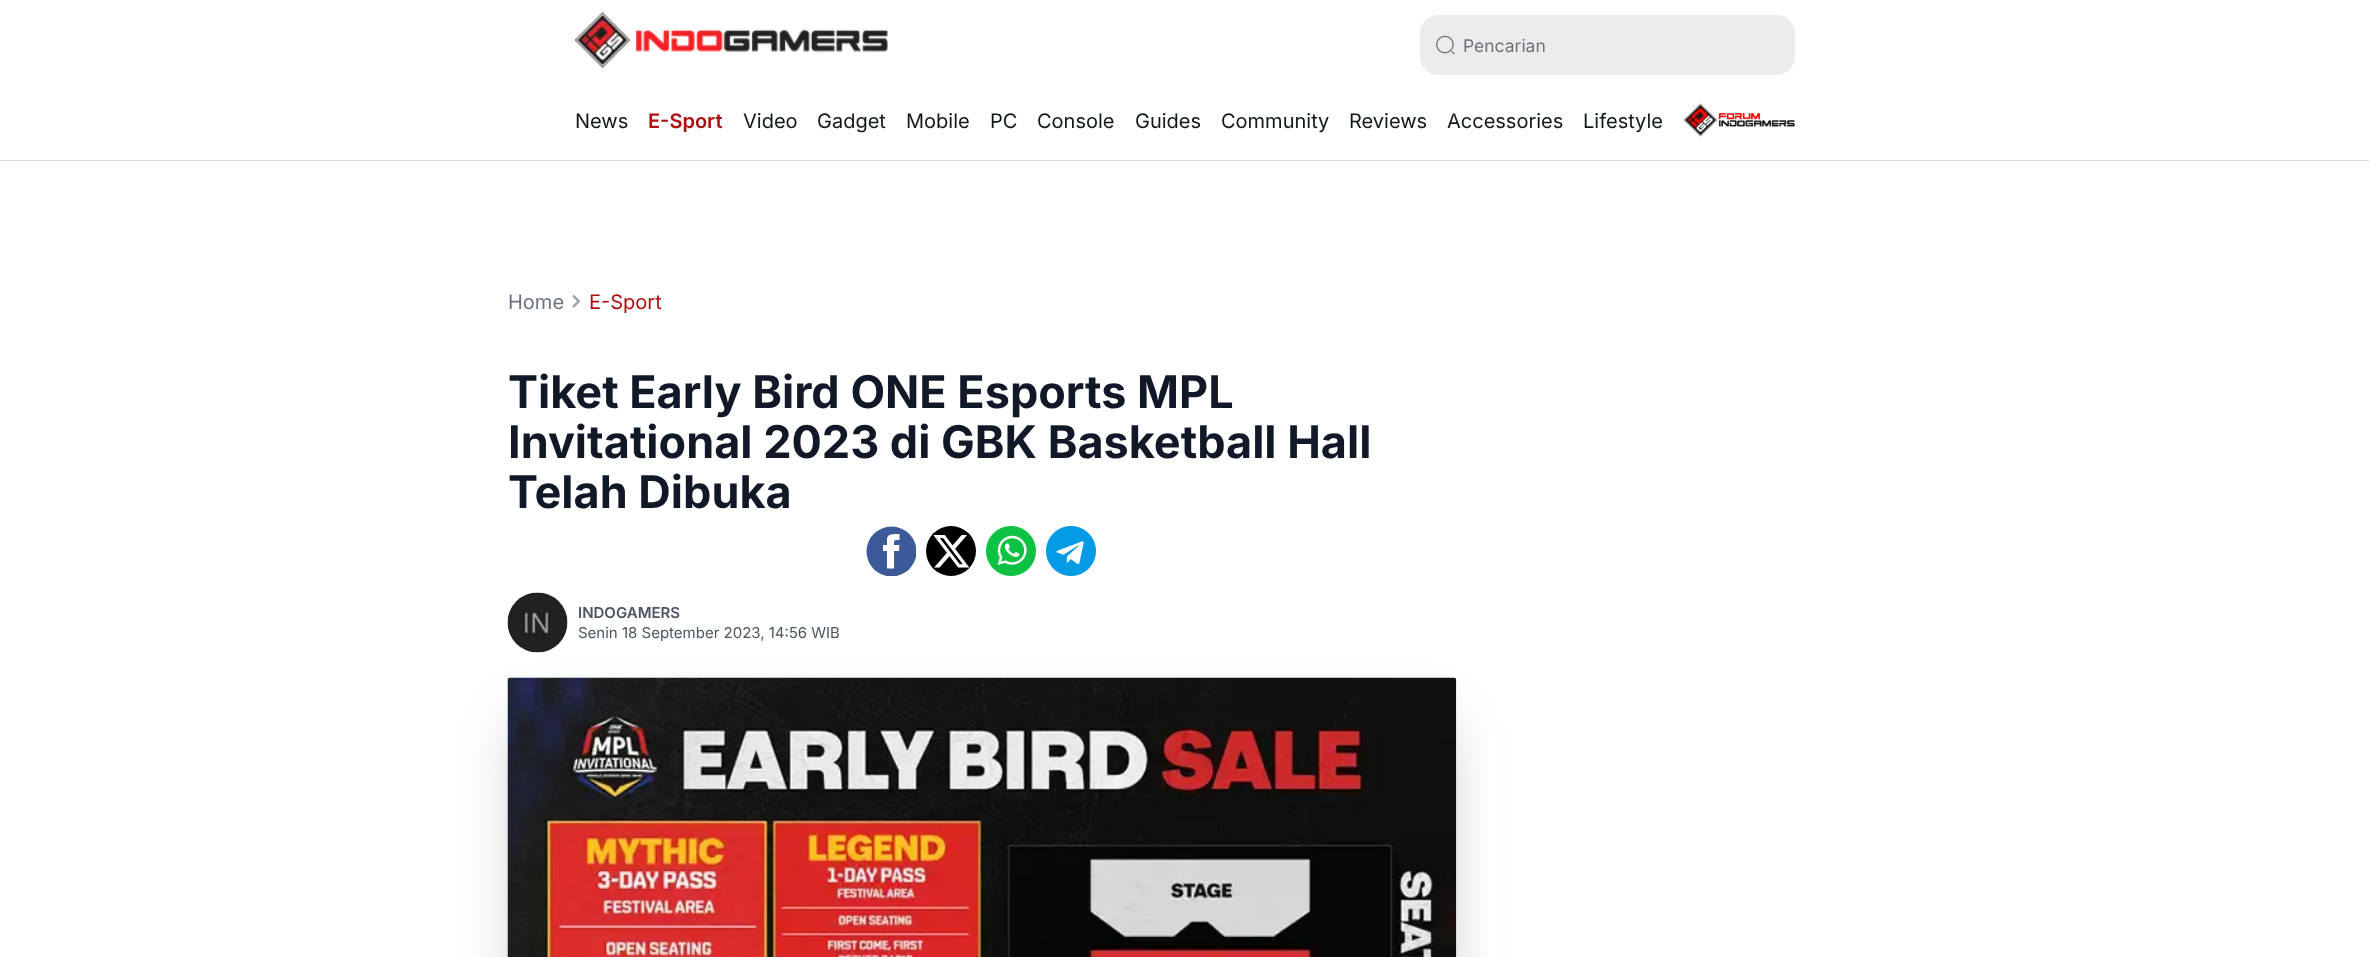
<!DOCTYPE html>
<meta charset="utf-8">
<style>body { margin: 0 } canvas { display: block }</style>
<canvas id="canvas" width="2369" height="957"></canvas>
<script type="module">
  const canvas = document.getElementById("canvas");
  const ctx = canvas.getContext("2d");
  ctx.miterLimit = 4;
  ctx.fontKerning = "normal";
  async function loadImage(src) {
    const img = new Image();
    img.src = src;
    await img.decode();
    return img;
  }

  ctx.fillStyle = "#ffffff";
  ctx.fillRect(0, 0, 2369, 957);
  ctx.drawImage(await loadImage("img1.png"), 575, 12, 313, 56);
  ctx.fillStyle = "rgba(161, 161, 170, 0.2)";
  ctx.beginPath();
  ctx.roundRect(1420, 15, 375, 60, 18);
  ctx.fill();
  ctx.drawImage(await loadImage("img2.png"), 1436, 35, 19, 20);
  ctx.font = "17.5px Inter";
  ctx.fillStyle = "#71717a";
  ctx.fillText("Pencarian", 1463, 52);
  ctx.fillStyle = "#dbdbdb";
  ctx.fillRect(0, 160, 2369, 1);
  ctx.font = "20px Inter";
  ctx.fillStyle = "#11181c";
  ctx.fillText("News", 575, 128);
  ctx.font = "600 20px Inter";
  ctx.fillStyle = "#af0e10";
  ctx.fillText("E-Sport", 648, 128);
  ctx.font = "20px Inter";
  ctx.fillStyle = "#11181c";
  ctx.fillText("Video", 743, 128);
  ctx.fillText("Gadget", 817, 128);
  ctx.fillText("Mobile", 906, 128);
  ctx.fillText("PC", 990, 128);
  ctx.fillText("Console", 1037, 128);
  ctx.fillText("Guides", 1135, 128);
  ctx.fillText("Community", 1221, 128);
  ctx.fillText("Reviews", 1349, 128);
  ctx.fillText("Accessories", 1447, 128);
  ctx.fillText("Lifestyle", 1583, 128);
  ctx.drawImage(await loadImage("img3.png"), 1683, 103, 112, 34);
  ctx.fillStyle = "#6b7280";
  ctx.fillText("Home", 508, 309);
  ctx.drawImage(await loadImage("img4.png"), 572, 295, 8, 13);
  ctx.fillStyle = "#af0e10";
  ctx.fillText("E-Sport", 589, 309);
  ctx.font = "bold 45px Inter";
  ctx.fillStyle = "#111827";
  ctx.fillText("Tiket Early Bird ONE Esports MPL", 508, 408);
  ctx.fillText("Invitational 2023 di GBK Basketball Hall", 508, 458);
  ctx.fillText("Telah Dibuka", 508, 508);
  ctx.save();
  ctx.beginPath();
  ctx.rect(866, 526, 50, 50);
  ctx.clip();
  ctx.fillStyle = "#3c5a9a";
  ctx.beginPath();
  ctx.arc(891.5, 551.5, 25, 0, Math.PI * 2);
  ctx.fill();
  ctx.restore();
  ctx.fillStyle = "#ffffff";
  ctx.beginPath();
  ctx.moveTo(899.5, 534);
  ctx.bezierCurveTo(895, 534, 888, 533, 887, 538.5);
  ctx.lineTo(887, 545);
  ctx.lineTo(883, 545);
  ctx.lineTo(883, 551);
  ctx.lineTo(887, 551);
  ctx.lineTo(887, 568.5);
  ctx.lineTo(894, 568.5);
  ctx.lineTo(894, 551);
  ctx.lineTo(899, 551);
  ctx.lineTo(899.5, 545);
  ctx.lineTo(894, 545);
  ctx.bezierCurveTo(894, 539.5, 894, 540, 899.5, 540);
  ctx.closePath();
  ctx.fill();
  ctx.fillStyle = "#000000";
  ctx.beginPath();
  ctx.arc(951, 551, 25, 0, Math.PI * 2);
  ctx.fill();
  ctx.drawImage(await loadImage("img5.png"), 933, 535, 37, 33);
  ctx.drawImage(await loadImage("img6.png"), 986, 526, 50, 50);
  ctx.drawImage(await loadImage("img7.png"), 1046, 526, 50, 50);
  ctx.drawImage(await loadImage("img8.png"), 507, 592, 61, 61);
  ctx.font = "600 15px Inter";
  ctx.fillStyle = "#4b5563";
  ctx.fillText("INDOGAMERS", 578, 618);
  ctx.font = "15px Inter";
  ctx.fillText("Senin 18 September 2023, 14:56 WIB", 578, 638);
  ctx.fillStyle = "rgba(0, 0, 0, 0.25)";
  ctx.filter = "blur(31px)";
  ctx.beginPath();
  ctx.rect(523, 724, 918, 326);
  ctx.fill();
  ctx.filter = "none";
  ctx.drawImage(await loadImage("img9.png"), 507, 677, 950, 280);
  ctx.fillStyle = "#ffffff";
  ctx.fillRect(1488, 735, 7, 222);
</script>
